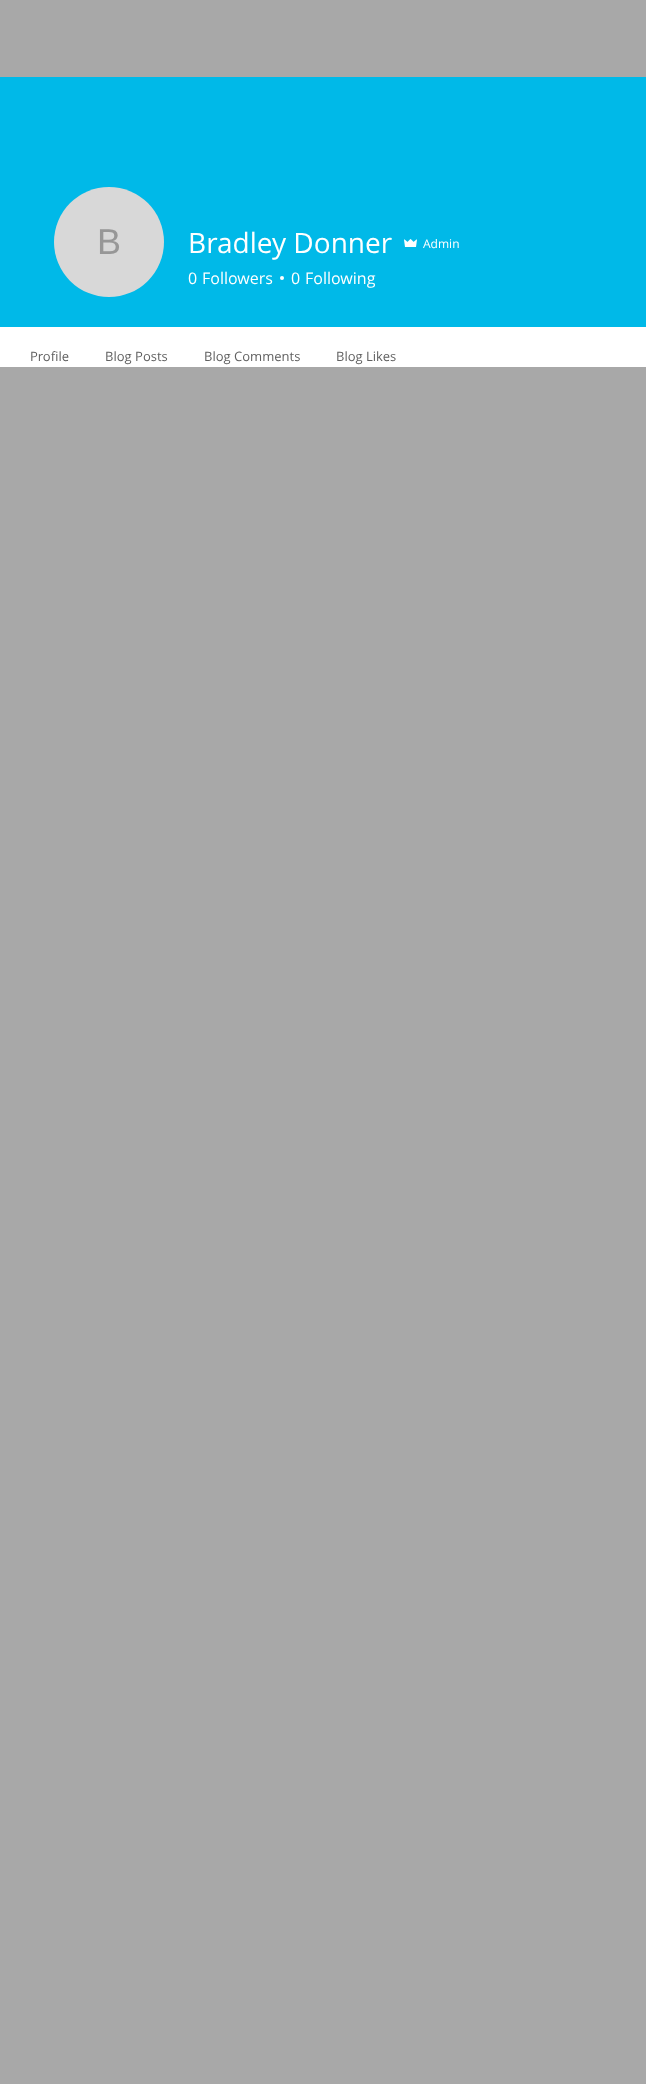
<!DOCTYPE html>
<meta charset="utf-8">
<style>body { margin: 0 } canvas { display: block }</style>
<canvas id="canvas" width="646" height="2084"></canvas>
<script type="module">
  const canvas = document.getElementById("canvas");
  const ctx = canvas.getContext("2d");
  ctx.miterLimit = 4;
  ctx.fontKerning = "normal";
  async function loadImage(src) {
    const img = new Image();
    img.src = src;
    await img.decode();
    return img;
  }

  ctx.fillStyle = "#a8a8a8";
  ctx.fillRect(0, 0, 646, 2084);
  ctx.fillStyle = "#00b9e8";
  ctx.fillRect(0, 77, 646, 250);
  ctx.fillStyle = "#d8d8d8";
  ctx.beginPath();
  ctx.arc(109, 242, 55, 0, Math.PI * 2);
  ctx.fill();
  ctx.font = "36px Liberation Sans";
  ctx.fillStyle = "#979797";
  ctx.fillText("B", 97, 254);
  ctx.font = "28px Open Sans";
  ctx.fillStyle = "#ffffff";
  ctx.fillText("Bradley Donner", 188, 253);
  ctx.drawImage(await loadImage("img1.png"), 404, 239, 13, 8);
  ctx.font = "12px Open Sans";
  ctx.fillText("Admin", 423, 248);
  ctx.font = "16px Open Sans";
  ctx.fillText("0", 188, 284);
  ctx.fillText("Followers", 202, 284);
  ctx.beginPath();
  ctx.arc(282, 278, 2, 0, Math.PI * 2);
  ctx.fill();
  ctx.fillText("0", 291, 284);
  ctx.fillText("Following", 305, 284);
  ctx.fillRect(0, 327, 646, 40);
  ctx.font = "13px Open Sans";
  ctx.fillStyle = "#606060";
  ctx.fillText("Profile", 30, 361);
  ctx.fillText("Blog Posts", 105, 361);
  ctx.fillText("Blog Comments", 204, 361);
  ctx.fillText("Blog Likes", 336, 361);
</script>
